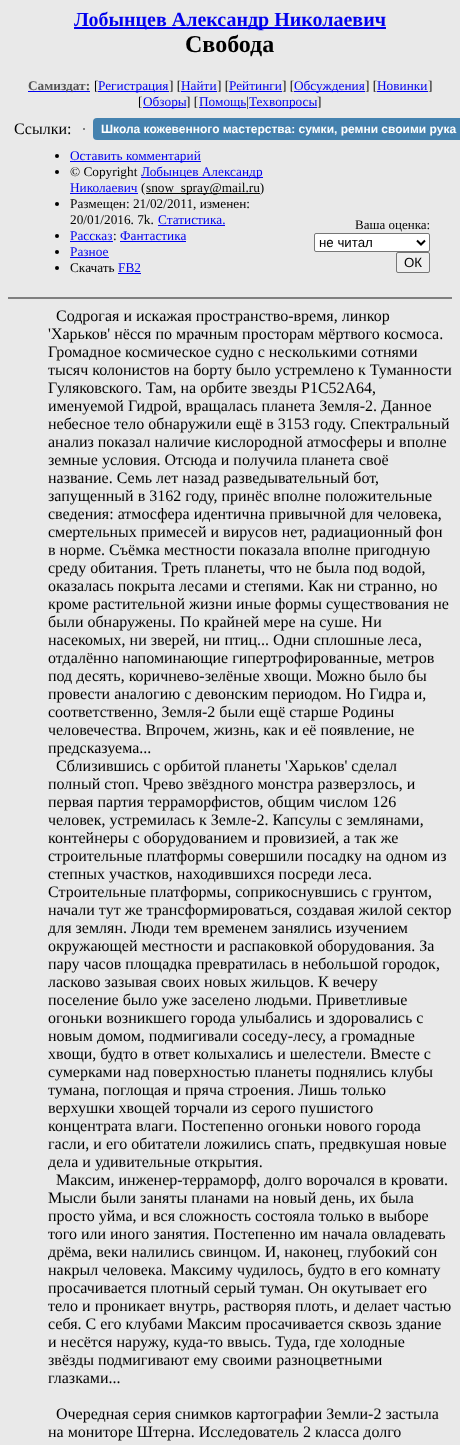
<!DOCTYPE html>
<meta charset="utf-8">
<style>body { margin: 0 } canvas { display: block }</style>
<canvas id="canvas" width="460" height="1445"></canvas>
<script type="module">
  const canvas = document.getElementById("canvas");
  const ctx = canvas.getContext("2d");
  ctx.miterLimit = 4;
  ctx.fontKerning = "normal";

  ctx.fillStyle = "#e9e9e9";
  ctx.fillRect(0, 0, 460, 1445);
  ctx.fillStyle = "#0000ee";
  ctx.fillRect(74, 27, 312, 2);
  ctx.font = "bold 20px Liberation Serif";
  ctx.fillText("Лобынцев Александр Николаевич", 74, 26);
  ctx.font = "bold 24px Liberation Serif";
  ctx.fillStyle = "#000000";
  ctx.fillText("Свобода", 185, 52);
  ctx.fillStyle = "#0000ee";
  ctx.fillRect(28, 91, 62, 1);
  ctx.font = "bold 13.3px Liberation Serif";
  ctx.fillStyle = "#555555";
  ctx.fillText("Самиздат:", 28, 90);
  ctx.font = "13.3px Liberation Serif";
  ctx.fillStyle = "#000000";
  ctx.fillText("[", 94, 90);
  ctx.fillStyle = "#0000ee";
  ctx.fillRect(98, 91, 71, 1);
  ctx.fillText("Регистрация", 98, 90);
  ctx.fillStyle = "#000000";
  ctx.fillText("] [", 169, 90);
  ctx.fillStyle = "#0000ee";
  ctx.fillRect(181, 91, 36, 1);
  ctx.fillText("Найти", 181, 90);
  ctx.fillStyle = "#000000";
  ctx.fillText("] [", 217, 90);
  ctx.fillStyle = "#0000ee";
  ctx.fillRect(229, 91, 53, 1);
  ctx.fillText("Рейтинги", 229, 90);
  ctx.fillStyle = "#000000";
  ctx.fillText("] [", 282, 90);
  ctx.fillStyle = "#0000ee";
  ctx.fillRect(294, 91, 71, 1);
  ctx.fillText("Обсуждения", 294, 90);
  ctx.fillStyle = "#000000";
  ctx.fillText("] [", 365, 90);
  ctx.fillStyle = "#0000ee";
  ctx.fillRect(377, 91, 51, 1);
  ctx.fillText("Новинки", 377, 90);
  ctx.fillStyle = "#000000";
  ctx.fillText("]", 428, 90);
  ctx.fillText("[", 138, 106);
  ctx.fillStyle = "#0000ee";
  ctx.fillRect(143, 107, 43, 1);
  ctx.fillText("Обзоры", 143, 106);
  ctx.fillStyle = "#000000";
  ctx.fillText("] [", 186, 106);
  ctx.fillStyle = "#0000ee";
  ctx.fillRect(199, 107, 47, 1);
  ctx.fillText("Помощь", 199, 106);
  ctx.fillStyle = "#000000";
  ctx.fillText("|", 246, 106);
  ctx.fillStyle = "#0000ee";
  ctx.fillRect(249, 107, 68, 1);
  ctx.fillText("Техвопросы", 249, 106);
  ctx.fillStyle = "#000000";
  ctx.fillText("]", 317, 106);
  ctx.font = "16px Liberation Serif";
  ctx.fillText("Ссылки:", 14, 134);
  ctx.fillStyle = "#808080";
  ctx.fillRect(83, 128, 2, 2);
  ctx.fillStyle = "#4582af";
  ctx.beginPath();
  ctx.roundRect(93, 118, 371, 22, 4);
  ctx.fill();
  ctx.font = "bold 12px Liberation Sans";
  ctx.fillStyle = "#ffffff";
  ctx.fillText("Школа кожевенного мастерства: сумки, ремни своими рука", 101, 133);
  ctx.fillStyle = "#000000";
  ctx.beginPath();
  ctx.arc(57, 156, 2, 0, Math.PI * 2);
  ctx.fill();
  ctx.fillStyle = "#0000ee";
  ctx.fillRect(70, 161, 131, 1);
  ctx.font = "13.3px Liberation Serif";
  ctx.fillText("Оставить комментарий", 70, 160);
  ctx.fillStyle = "#000000";
  ctx.beginPath();
  ctx.arc(57, 172, 2, 0, Math.PI * 2);
  ctx.fill();
  ctx.fillText("© Copyright", 70, 176);
  ctx.fillStyle = "#0000ee";
  ctx.fillRect(141, 177, 122, 1);
  ctx.fillText("Лобынцев Александр", 141, 176);
  ctx.fillText("Николаевич", 70, 192);
  ctx.fillRect(70, 193, 68, 1);
  ctx.fillStyle = "#000000";
  ctx.fillText("(", 141, 192);
  ctx.fillRect(146, 193, 114, 1);
  ctx.fillText("snow_spray@mail.ru)", 146, 192);
  ctx.beginPath();
  ctx.arc(57, 204, 2, 0, Math.PI * 2);
  ctx.fill();
  ctx.fillText("Размещен: 21/02/2011, изменен:", 70, 208);
  ctx.fillText("20/01/2016. 7k.", 70, 224);
  ctx.fillStyle = "#0000ee";
  ctx.fillText("Статистика.", 158, 224);
  ctx.fillRect(158, 225, 67, 1);
  ctx.fillStyle = "#000000";
  ctx.beginPath();
  ctx.arc(57, 236, 2, 0, Math.PI * 2);
  ctx.fill();
  ctx.fillStyle = "#0000ee";
  ctx.fillText("Рассказ", 70, 240);
  ctx.fillRect(70, 241, 43, 1);
  ctx.fillStyle = "#000000";
  ctx.fillText(":", 113, 240);
  ctx.fillStyle = "#0000ee";
  ctx.fillText("Фантастика", 120, 240);
  ctx.fillRect(120, 241, 66, 1);
  ctx.fillStyle = "#000000";
  ctx.beginPath();
  ctx.arc(57, 252, 2, 0, Math.PI * 2);
  ctx.fill();
  ctx.fillStyle = "#0000ee";
  ctx.fillText("Разное", 70, 256);
  ctx.fillRect(70, 257, 39, 1);
  ctx.fillStyle = "#000000";
  ctx.beginPath();
  ctx.arc(57, 268, 2, 0, Math.PI * 2);
  ctx.fill();
  ctx.fillText("Скачать", 70, 272);
  ctx.fillStyle = "#0000ee";
  ctx.fillText("FB2", 118, 272);
  ctx.fillRect(118, 273, 23, 1);
  ctx.font = "13px Liberation Serif";
  ctx.fillStyle = "#000000";
  ctx.fillText("Ваша оценка:", 355, 229);
  ctx.fillStyle = "#ffffff";
  ctx.beginPath();
  ctx.roundRect(314.5, 233.5, 115, 18, 1.5);
  ctx.fill();
  ctx.strokeStyle = "#767676";
  ctx.stroke();
  ctx.beginPath();
  ctx.moveTo(417, 240.5);
  ctx.lineTo(421, 244.5);
  ctx.lineTo(425, 240.5);
  ctx.strokeStyle = "#000000";
  ctx.lineWidth = 2;
  ctx.stroke();
  ctx.font = "13.3px Liberation Sans";
  ctx.fillStyle = "#000000";
  ctx.fillText("не читал", 319, 247);
  ctx.fillStyle = "#efefef";
  ctx.beginPath();
  ctx.roundRect(396.5, 252.5, 33, 20, 1.5);
  ctx.fill();
  ctx.strokeStyle = "#767676";
  ctx.lineWidth = 1;
  ctx.stroke();
  ctx.fillStyle = "#000000";
  ctx.fillText("ОК", 404, 267);
  ctx.fillStyle = "#808080";
  ctx.fillRect(8, 297, 444, 2);
  ctx.font = "16px Liberation Serif";
  ctx.fillStyle = "#000000";
  ctx.fillText("Содрогая и искажая пространство-время, линкор", 56, 321);
  ctx.fillText("'Харьков' нёсся по мрачным просторам мёртвого космоса.", 48, 339);
  ctx.fillText("Громадное космическое судно с несколькими сотнями", 48, 357);
  ctx.fillText("тысяч колонистов на борту было устремлено к Туманности", 48, 375);
  ctx.fillText("Гуляковского. Там, на орбите звезды Р1С52А64,", 48, 393);
  ctx.fillText("именуемой Гидрой, вращалась планета Земля-2. Данное", 48, 411);
  ctx.fillText("небесное тело обнаружили ещё в 3153 году. Спектральный", 48, 429);
  ctx.fillText("анализ показал наличие кислородной атмосферы и вполне", 48, 447);
  ctx.fillText("земные условия. Отсюда и получила планета своё", 48, 465);
  ctx.fillText("название. Семь лет назад разведывательный бот,", 48, 483);
  ctx.fillText("запущенный в 3162 году, принёс вполне положительные", 48, 501);
  ctx.fillText("сведения: атмосфера идентична привычной для человека,", 48, 519);
  ctx.fillText("смертельных примесей и вирусов нет, радиационный фон", 48, 537);
  ctx.fillText("в норме. Съёмка местности показала вполне пригодную", 48, 555);
  ctx.fillText("среду обитания. Треть планеты, что не была под водой,", 48, 573);
  ctx.fillText("оказалась покрыта лесами и степями. Как ни странно, но", 48, 591);
  ctx.fillText("кроме растительной жизни иные формы существования не", 48, 609);
  ctx.fillText("были обнаружены. По крайней мере на суше. Ни", 48, 627);
  ctx.fillText("насекомых, ни зверей, ни птиц... Одни сплошные леса,", 48, 645);
  ctx.fillText("отдалённо напоминающие гипертрофированные, метров", 48, 663);
  ctx.fillText("под десять, коричнево-зелёные хвощи. Можно было бы", 48, 681);
  ctx.fillText("провести аналогию с девонским периодом. Но Гидра и,", 48, 699);
  ctx.fillText("соответственно, Земля-2 были ещё старше Родины", 48, 717);
  ctx.fillText("человечества. Впрочем, жизнь, как и её появление, не", 48, 735);
  ctx.fillText("предсказуема...", 48, 753);
  ctx.fillText("Сблизившись с орбитой планеты 'Харьков' сделал", 56, 771);
  ctx.fillText("полный стоп. Чрево звёздного монстра разверзлось, и", 48, 789);
  ctx.fillText("первая партия терраморфистов, общим числом 126", 48, 807);
  ctx.fillText("человек, устремилась к Земле-2. Капсулы с землянами,", 48, 825);
  ctx.fillText("контейнеры с оборудованием и провизией, а так же", 48, 843);
  ctx.fillText("строительные платформы совершили посадку на одном из", 48, 861);
  ctx.fillText("степных участков, находившихся посреди леса.", 48, 879);
  ctx.fillText("Строительные платформы, соприкоснувшись с грунтом,", 48, 897);
  ctx.fillText("начали тут же трансформироваться, создавая жилой сектор", 48, 915);
  ctx.fillText("для землян. Люди тем временем занялись изучением", 48, 933);
  ctx.fillText("окружающей местности и распаковкой оборудования. За", 48, 951);
  ctx.fillText("пару часов площадка превратилась в небольшой городок,", 48, 969);
  ctx.fillText("ласково зазывая своих новых жильцов. К вечеру", 48, 987);
  ctx.fillText("поселение было уже заселено людьми. Приветливые", 48, 1005);
  ctx.fillText("огоньки возникшего города улыбались и здоровались с", 48, 1023);
  ctx.fillText("новым домом, подмигивали соседу-лесу, а громадные", 48, 1041);
  ctx.fillText("хвощи, будто в ответ колыхались и шелестели. Вместе с", 48, 1059);
  ctx.fillText("сумерками над поверхностью планеты поднялись клубы", 48, 1077);
  ctx.fillText("тумана, поглощая и пряча строения. Лишь только", 48, 1095);
  ctx.fillText("верхушки хвощей торчали из серого пушистого", 48, 1113);
  ctx.fillText("концентрата влаги. Постепенно огоньки нового города", 48, 1131);
  ctx.fillText("гасли, и его обитатели ложились спать, предвкушая новые", 48, 1149);
  ctx.fillText("дела и удивительные открытия.", 48, 1167);
  ctx.fillText("Максим, инженер-терраморф, долго ворочался в кровати.", 56, 1185);
  ctx.fillText("Мысли были заняты планами на новый день, их была", 48, 1203);
  ctx.fillText("просто уйма, и вся сложность состояла только в выборе", 48, 1221);
  ctx.fillText("того или иного занятия. Постепенно им начала овладевать", 48, 1239);
  ctx.fillText("дрёма, веки налились свинцом. И, наконец, глубокий сон", 48, 1257);
  ctx.fillText("накрыл человека. Максиму чудилось, будто в его комнату", 48, 1275);
  ctx.fillText("просачивается плотный серый туман. Он окутывает его", 48, 1293);
  ctx.fillText("тело и проникает внутрь, растворяя плоть, и делает частью", 48, 1311);
  ctx.fillText("себя. С его клубами Максим просачивается сквозь здание", 48, 1329);
  ctx.fillText("и несётся наружу, куда-то ввысь. Туда, где холодные", 48, 1347);
  ctx.fillText("звёзды подмигивают ему своими разноцветными", 48, 1365);
  ctx.fillText("глазками...", 48, 1383);
  ctx.fillText("Очередная серия снимков картографии Земли-2 застыла", 56, 1419);
  ctx.fillText("на мониторе Штерна. Исследователь 2 класса долго", 48, 1437);
</script>
